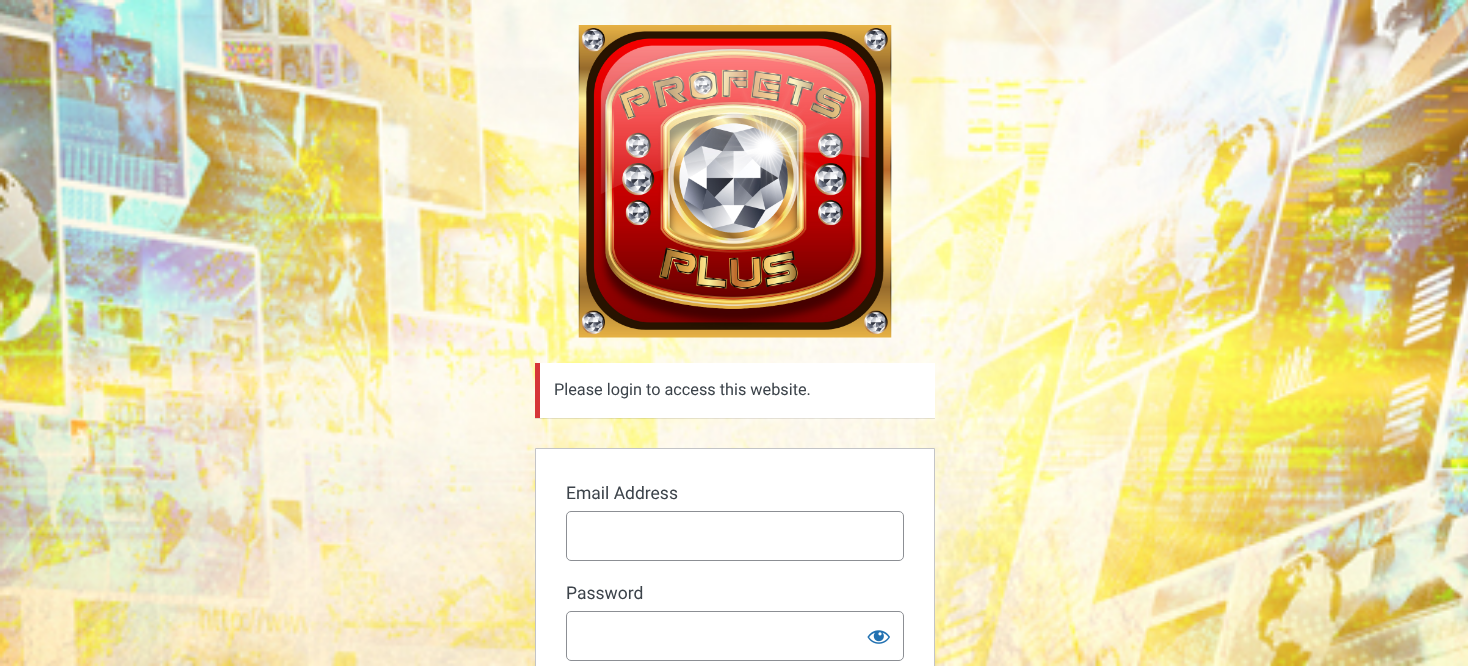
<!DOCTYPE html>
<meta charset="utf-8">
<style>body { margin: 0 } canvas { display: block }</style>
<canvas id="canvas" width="1468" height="666"></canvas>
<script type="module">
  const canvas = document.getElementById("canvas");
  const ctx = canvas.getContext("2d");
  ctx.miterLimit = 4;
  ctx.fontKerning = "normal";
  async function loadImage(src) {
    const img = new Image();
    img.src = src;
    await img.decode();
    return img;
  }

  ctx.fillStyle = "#ffffff";
  ctx.fillRect(0, 0, 1468, 666);
  ctx.drawImage(await loadImage("img1.png"), 0, 0, 1468, 666);
  ctx.drawImage(await loadImage("img2.png"), 578, 25, 314, 313);
  ctx.fillStyle = "rgba(0, 0, 0, 0.1)";
  ctx.filter = "blur(0.5px)";
  ctx.beginPath();
  ctx.rect(535, 364, 400, 55);
  ctx.fill();
  ctx.filter = "none";
  ctx.fillStyle = "#ffffff";
  ctx.fillRect(540, 363, 395, 55);
  ctx.fillStyle = "#d63638";
  ctx.fillRect(535, 363, 5, 55);
  ctx.font = "16.25px Roboto";
  ctx.fillStyle = "#3c434a";
  ctx.fillText("Please login to access this website.", 554, 395);
  ctx.fillStyle = "#ffffff";
  ctx.beginPath();
  ctx.rect(535.5, 448.5, 399, 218);
  ctx.fill();
  ctx.strokeStyle = "#c3c4c7";
  ctx.stroke();
  ctx.font = "17.5px Roboto";
  ctx.fillStyle = "#3c434a";
  ctx.fillText("Email Address", 566, 499);
  ctx.beginPath();
  ctx.roundRect(566.5, 511.5, 337, 49, 4.5);
  ctx.strokeStyle = "#8c8f94";
  ctx.stroke();
  ctx.fillText("Password", 566, 599);
  ctx.beginPath();
  ctx.roundRect(566.5, 611.5, 337, 49, 4.5);
  ctx.stroke();
  ctx.drawImage(await loadImage("img3.png"), 867, 630, 23, 14);
</script>
